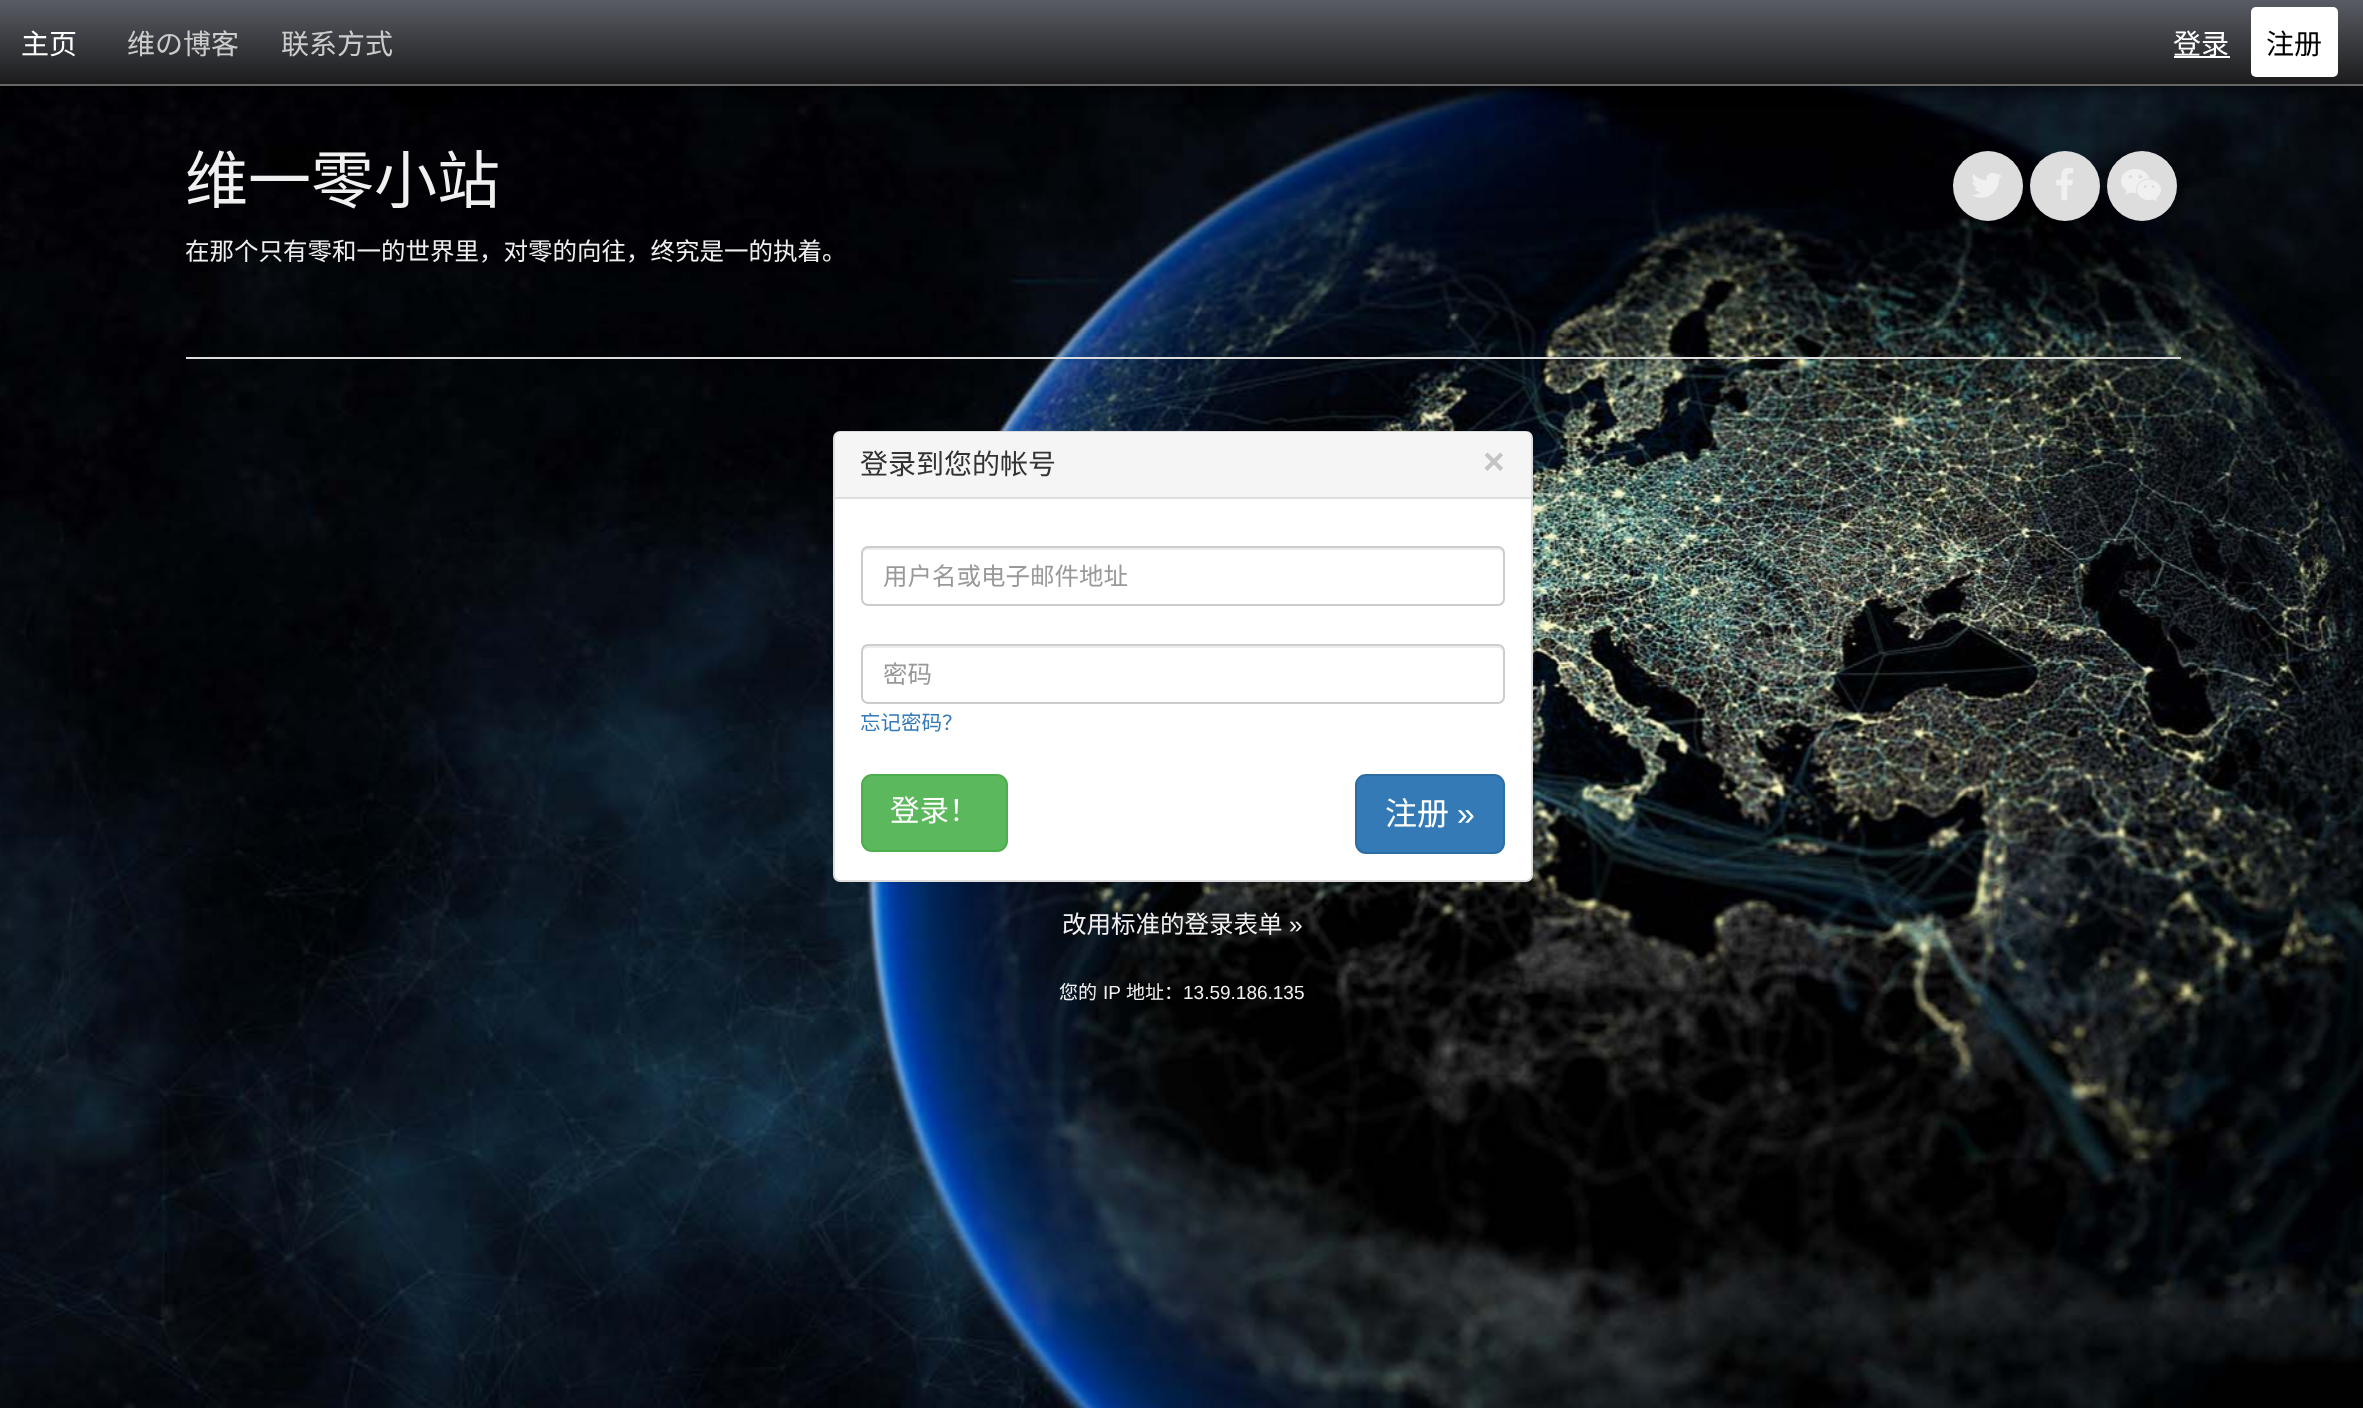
<!DOCTYPE html>
<meta charset="utf-8">
<style>body { margin: 0 } canvas { display: block }</style>
<canvas id="canvas" width="2363" height="1408"></canvas>
<script type="module">
  const canvas = document.getElementById("canvas");
  const ctx = canvas.getContext("2d");
  ctx.miterLimit = 4;
  ctx.fontKerning = "normal";
  async function loadImage(src) {
    const img = new Image();
    img.src = src;
    await img.decode();
    return img;
  }
  let gradient;

  ctx.fillStyle = "#ffffff";
  ctx.fillRect(0, 0, 2363, 1408);
  ctx.drawImage(await loadImage("img1.png"), 0, 86, 2363, 1322);
  ctx.fillStyle = "rgba(0, 0, 0, 0.5)";
  ctx.filter = "blur(7px)";
  ctx.beginPath();
  ctx.rect(-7, -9, 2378, 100);
  ctx.fill();
  ctx.filter = "none";
  gradient = ctx.createLinearGradient(1182, 0, 1182, 84);
  gradient.addColorStop(0, "#595c64");
  gradient.addColorStop(1, "#1b1b1c");
  ctx.fillStyle = gradient;
  ctx.fillRect(0, 0, 2363, 84);
  ctx.fillStyle = "#666666";
  ctx.fillRect(0, 84, 2363, 2);
  ctx.font = "28px Noto Sans CJK SC";
  ctx.fillStyle = "#ffffff";
  ctx.fillText("主页", 21, 54);
  ctx.fillStyle = "#cccccc";
  ctx.fillText("维の博客", 127, 54);
  ctx.fillText("联系方式", 281, 54);
  ctx.fillStyle = "#ffffff";
  ctx.fillRect(2174, 56, 56, 2);
  ctx.fillText("登录", 2173, 54);
  ctx.beginPath();
  ctx.roundRect(2251, 7, 87, 70, 5);
  ctx.fill();
  ctx.fillStyle = "#000000";
  ctx.fillText("注册", 2266, 54);
  ctx.font = "63px Noto Sans CJK SC";
  ctx.fillStyle = "#f0f0f0";
  ctx.fillText("维一零小站", 185, 203);
  ctx.font = "24.5px Noto Sans CJK SC";
  ctx.fillText("在那个只有零和一的世界里，对零的向往，终究是一的执着。", 185, 260);
  ctx.fillStyle = "#dddddd";
  ctx.beginPath();
  ctx.arc(1988, 186, 35, 0, Math.PI * 2);
  ctx.fill();
  ctx.drawImage(await loadImage("img2.png"), 1972, 172, 30, 26);
  ctx.beginPath();
  ctx.arc(2065, 186, 35, 0, Math.PI * 2);
  ctx.fill();
  ctx.drawImage(await loadImage("img3.png"), 2056, 167, 18, 34);
  ctx.beginPath();
  ctx.arc(2142, 186, 35, 0, Math.PI * 2);
  ctx.fill();
  ctx.drawImage(await loadImage("img4.png"), 2121, 169, 40, 32);
  ctx.fillRect(186, 357, 1995, 2);
  ctx.fillStyle = "rgba(0, 0, 0, 0.05)";
  ctx.filter = "blur(1px)";
  ctx.beginPath();
  ctx.roundRect(833, 432, 700, 452, 7);
  ctx.fill();
  ctx.filter = "none";
  ctx.fillStyle = "#ffffff";
  ctx.beginPath();
  ctx.roundRect(834, 432, 698, 449, 6);
  ctx.fill();
  ctx.strokeStyle = "#dddddd";
  ctx.lineWidth = 2;
  ctx.stroke();
  ctx.fillStyle = "#f5f5f5";
  ctx.beginPath();
  ctx.roundRect(835, 432, 696, 67, [5, 5, 0, 0]);
  ctx.fill();
  ctx.fillStyle = "#dddddd";
  ctx.fillRect(835, 497, 696, 2);
  ctx.font = "28px Noto Sans CJK SC";
  ctx.fillStyle = "#333333";
  ctx.fillText("登录到您的帐号", 860, 474);
  ctx.font = "bold 37px Liberation Sans";
  ctx.fillStyle = "#c4c4c4";
  ctx.fillText("×", 1483, 474);
  ctx.fillStyle = "#ececec";
  ctx.beginPath();
  ctx.moveTo(868, 550);
  ctx.lineTo(1498, 550);
  ctx.bezierCurveTo(1501, 550, 1503, 552, 1503, 555);
  ctx.lineTo(1503, 553);
  ctx.bezierCurveTo(1503, 550, 1501, 548, 1498, 548);
  ctx.lineTo(868, 548);
  ctx.bezierCurveTo(865, 548, 863, 550, 863, 553);
  ctx.lineTo(863, 555);
  ctx.bezierCurveTo(863, 552, 865, 550, 868, 550);
  ctx.closePath();
  ctx.fill();
  ctx.beginPath();
  ctx.roundRect(862, 547, 642, 58, 6);
  ctx.strokeStyle = "#cccccc";
  ctx.stroke();
  ctx.font = "24.5px Noto Sans CJK SC";
  ctx.fillStyle = "#999999";
  ctx.fillText("用户名或电子邮件地址", 883, 585);
  ctx.fillStyle = "#ececec";
  ctx.beginPath();
  ctx.moveTo(868, 648);
  ctx.lineTo(1498, 648);
  ctx.bezierCurveTo(1501, 648, 1503, 650, 1503, 653);
  ctx.lineTo(1503, 651);
  ctx.bezierCurveTo(1503, 648, 1501, 646, 1498, 646);
  ctx.lineTo(868, 646);
  ctx.bezierCurveTo(865, 646, 863, 648, 863, 651);
  ctx.lineTo(863, 653);
  ctx.bezierCurveTo(863, 650, 865, 648, 868, 648);
  ctx.closePath();
  ctx.fill();
  ctx.beginPath();
  ctx.roundRect(862, 645, 642, 58, 6);
  ctx.stroke();
  ctx.fillStyle = "#999999";
  ctx.fillText("密码", 883, 683);
  ctx.font = "20.5px Noto Sans CJK SC";
  ctx.fillStyle = "#337ab7";
  ctx.fillText("忘记密码？", 860, 730);
  ctx.fillStyle = "#5cb85c";
  ctx.beginPath();
  ctx.roundRect(862, 775, 145, 76, 10);
  ctx.fill();
  ctx.strokeStyle = "#4cae4c";
  ctx.stroke();
  ctx.font = "29.5px Noto Sans CJK SC";
  ctx.fillStyle = "#ffffff";
  ctx.fillText("登录！", 890, 821);
  ctx.fillStyle = "#337ab7";
  ctx.beginPath();
  ctx.roundRect(1356, 775, 148, 78, 10);
  ctx.fill();
  ctx.strokeStyle = "#2e6da4";
  ctx.stroke();
  ctx.font = "32px Noto Sans CJK SC";
  ctx.fillStyle = "#ffffff";
  ctx.fillText("注册", 1385, 825);
  ctx.font = "32px Liberation Sans";
  ctx.fillText("»", 1457, 825);
  ctx.font = "24.5px Noto Sans CJK SC";
  ctx.fillStyle = "#f0f0f0";
  ctx.fillText("改用标准的登录表单", 1062, 933);
  ctx.font = "24.5px Liberation Sans";
  ctx.fillText("»", 1289, 933);
  ctx.font = "19px Noto Sans CJK SC";
  ctx.fillText("您的", 1059, 999);
  ctx.font = "19px Liberation Sans";
  ctx.fillText("IP", 1103, 999);
  ctx.font = "19px Noto Sans CJK SC";
  ctx.fillText("地址：", 1126, 999);
  ctx.font = "19px Liberation Sans";
  ctx.fillText("13.59.186.135", 1183, 999);
</script>
